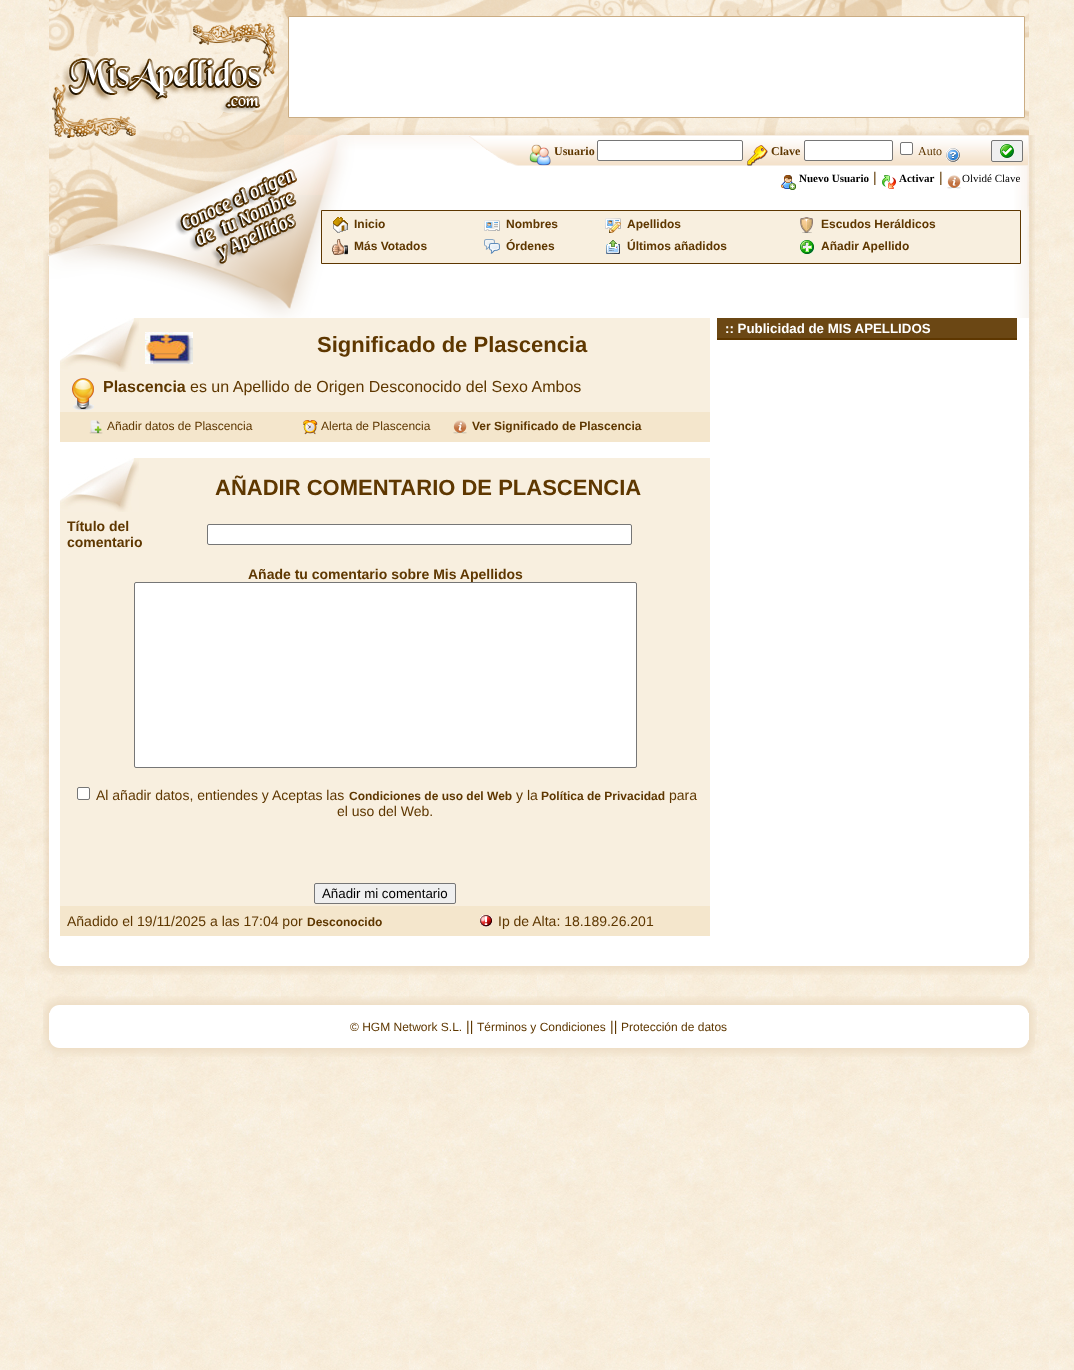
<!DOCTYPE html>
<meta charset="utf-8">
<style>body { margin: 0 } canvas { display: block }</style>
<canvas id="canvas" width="1074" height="1370"></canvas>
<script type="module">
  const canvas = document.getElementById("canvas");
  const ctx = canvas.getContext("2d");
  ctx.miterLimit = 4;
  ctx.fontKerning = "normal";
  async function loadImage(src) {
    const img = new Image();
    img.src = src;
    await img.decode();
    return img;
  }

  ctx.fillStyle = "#ffffff";
  ctx.fillRect(0, 0, 1074, 1370);
  ctx.drawImage(await loadImage("img1.png"), 0, 0, 1074, 1370);
  ctx.drawImage(await loadImage("img2.png"), 49, 0, 235, 195);
  ctx.drawImage(await loadImage("img3.png"), 284, 0, 745, 135);
  ctx.drawImage(await loadImage("img4.png"), 284, 135, 745, 60);
  ctx.drawImage(await loadImage("img5.png"), 529, 144, 22, 22);
  ctx.font = "bold 12px Liberation Serif";
  ctx.fillStyle = "#5e3700";
  ctx.fillText("Usuario", 554, 155);
  ctx.fillStyle = "#ffffff";
  ctx.beginPath();
  ctx.roundRect(597.5, 140.5, 145, 20, 1.5);
  ctx.fill();
  ctx.strokeStyle = "#767676";
  ctx.stroke();
  ctx.drawImage(await loadImage("img6.png"), 747, 145, 21, 21);
  ctx.fillStyle = "#5e3700";
  ctx.fillText("Clave", 771, 155);
  ctx.fillStyle = "#ffffff";
  ctx.beginPath();
  ctx.roundRect(804.5, 140.5, 88, 20, 1.5);
  ctx.fill();
  ctx.stroke();
  ctx.beginPath();
  ctx.roundRect(900.5, 142.5, 12, 12, 1.5);
  ctx.fill();
  ctx.stroke();
  ctx.font = "12px Liberation Serif";
  ctx.fillStyle = "#5e3700";
  ctx.fillText("Auto", 918, 155);
  ctx.drawImage(await loadImage("img7.png"), 946, 148, 14, 14);
  ctx.fillStyle = "#efefef";
  ctx.beginPath();
  ctx.roundRect(991.5, 140.5, 31, 21, 1.5);
  ctx.fill();
  ctx.stroke();
  ctx.drawImage(await loadImage("img8.png"), 1000, 144, 14, 14);
  ctx.drawImage(await loadImage("img9.png"), 781, 175, 15, 15);
  ctx.font = "bold 11px Liberation Serif";
  ctx.fillStyle = "#000000";
  ctx.fillText("Nuevo Usuario", 799, 182);
  ctx.font = "14px Liberation Sans";
  ctx.fillStyle = "#5e3700";
  ctx.fillText("|", 873, 182);
  ctx.drawImage(await loadImage("img10.png"), 882, 175, 14, 14);
  ctx.font = "bold 11px Liberation Serif";
  ctx.fillStyle = "#000000";
  ctx.fillText("Activar", 899, 182);
  ctx.font = "14px Liberation Sans";
  ctx.fillStyle = "#5e3700";
  ctx.fillText("|", 939, 182);
  ctx.drawImage(await loadImage("img11.png"), 947, 175, 14, 14);
  ctx.font = "11px Liberation Serif";
  ctx.fillStyle = "#000000";
  ctx.fillText("Olvidé Clave", 962, 182);
  ctx.drawImage(await loadImage("img12.png"), 1029, 135, 6, 60);
  ctx.drawImage(await loadImage("img13.png"), 49, 195, 235, 123);
  ctx.drawImage(await loadImage("img14.png"), 284, 195, 745, 123);
  ctx.fillStyle = "#f8efdf";
  ctx.beginPath();
  ctx.rect(321.5, 210.5, 699, 53);
  ctx.fill();
  ctx.strokeStyle = "#5e3700";
  ctx.stroke();
  ctx.drawImage(await loadImage("img15.png"), 333, 217, 15, 16);
  ctx.font = "bold 12px Liberation Sans";
  ctx.fillStyle = "#5e3700";
  ctx.fillText("Inicio", 354, 228);
  ctx.drawImage(await loadImage("img16.png"), 484, 220, 16, 11);
  ctx.fillText("Nombres", 506, 228);
  ctx.drawImage(await loadImage("img17.png"), 605, 218, 16, 15);
  ctx.fillText("Apellidos", 627, 228);
  ctx.drawImage(await loadImage("img18.png"), 800, 217, 13, 16);
  ctx.fillText("Escudos Heráldicos", 821, 228);
  ctx.drawImage(await loadImage("img19.png"), 332, 239, 16, 16);
  ctx.fillText("Más Votados", 354, 250);
  ctx.drawImage(await loadImage("img20.png"), 484, 239, 16, 15);
  ctx.fillText("Órdenes", 506, 250);
  ctx.drawImage(await loadImage("img21.png"), 606, 240, 14, 14);
  ctx.fillText("Últimos añadidos", 627, 250);
  ctx.drawImage(await loadImage("img22.png"), 800, 240, 14, 14);
  ctx.fillText("Añadir Apellido", 821, 250);
  ctx.drawImage(await loadImage("img23.png"), 1029, 195, 6, 123);
  ctx.drawImage(await loadImage("img24.png"), 43, 249, 6, 69);
  ctx.drawImage(await loadImage("img25.png"), 43, 318, 6, 634);
  ctx.fillStyle = "#ffffff";
  ctx.fillRect(49, 318, 980, 634);
  ctx.fillStyle = "#6b4714";
  ctx.fillRect(717, 318, 300, 20);
  ctx.font = "bold 13.3px Liberation Sans";
  ctx.fillStyle = "#ffffff";
  ctx.fillText(":: Publicidad de MIS APELLIDOS", 725, 333);
  ctx.fillStyle = "#5e3700";
  ctx.fillRect(717, 338, 300, 2);
  ctx.fillStyle = "#f8efdf";
  ctx.fillRect(60, 318, 650, 94);
  ctx.drawImage(await loadImage("img26.png"), 60, 318, 79, 54);
  ctx.drawImage(await loadImage("img27.png"), 145, 332, 48, 32);
  ctx.font = "bold 22px Liberation Sans";
  ctx.fillStyle = "#5e3700";
  ctx.fillText("Significado de Plascencia", 317, 352);
  ctx.drawImage(await loadImage("img28.png"), 72, 378, 22, 32);
  ctx.font = "bold 16px Liberation Sans";
  ctx.fillText("Plascencia", 103, 392);
  ctx.font = "16px Liberation Sans";
  ctx.fillText("es un Apellido de Origen Desconocido del Sexo Ambos", 190, 392);
  ctx.fillStyle = "#f4e6cc";
  ctx.fillRect(60, 412, 650, 30);
  ctx.drawImage(await loadImage("img29.png"), 89, 420, 14, 14);
  ctx.font = "12px Liberation Sans";
  ctx.fillStyle = "#5e3700";
  ctx.fillText("Añadir datos de Plascencia", 107, 430);
  ctx.drawImage(await loadImage("img30.png"), 303, 420, 15, 15);
  ctx.fillText("Alerta de Plascencia", 321, 430);
  ctx.drawImage(await loadImage("img31.png"), 453, 420, 14, 14);
  ctx.font = "bold 12px Liberation Sans";
  ctx.fillText("Ver Significado de Plascencia", 472, 430);
  ctx.fillStyle = "#f8efdf";
  ctx.fillRect(60, 458, 650, 448);
  ctx.drawImage(await loadImage("img26.png"), 60, 458, 79, 54);
  ctx.font = "bold 22px Liberation Sans";
  ctx.fillStyle = "#5e3700";
  ctx.fillText("AÑADIR COMENTARIO DE PLASCENCIA", 215, 495);
  ctx.font = "bold 14px Liberation Sans";
  ctx.fillText("Título del", 67, 531);
  ctx.fillText("comentario", 67, 547);
  ctx.fillStyle = "#ffffff";
  ctx.beginPath();
  ctx.roundRect(207.5, 524.5, 424, 20, 1.5);
  ctx.fill();
  ctx.strokeStyle = "#767676";
  ctx.stroke();
  ctx.fillStyle = "#5e3700";
  ctx.fillText("Añade tu comentario sobre Mis Apellidos", 248, 579);
  ctx.fillStyle = "#ffffff";
  ctx.beginPath();
  ctx.roundRect(134.5, 582.5, 502, 185, 1.5);
  ctx.fill();
  ctx.stroke();
  ctx.beginPath();
  ctx.roundRect(77.5, 787.5, 12, 12, 1.5);
  ctx.fill();
  ctx.stroke();
  ctx.font = "14px Liberation Sans";
  ctx.fillStyle = "#5e3700";
  ctx.fillText("Al añadir datos, entiendes y Aceptas las", 96, 800);
  ctx.font = "bold 12px Liberation Sans";
  ctx.fillText("Condiciones de uso del Web", 349, 800);
  ctx.font = "14px Liberation Sans";
  ctx.fillText("y la", 516, 800);
  ctx.font = "bold 12px Liberation Sans";
  ctx.fillText("Política de Privacidad", 541, 800);
  ctx.font = "14px Liberation Sans";
  ctx.fillText("para", 669, 800);
  ctx.fillText("el uso del Web.", 337, 816);
  ctx.fillStyle = "#efefef";
  ctx.beginPath();
  ctx.roundRect(314.5, 883.5, 141, 20, 1.5);
  ctx.fill();
  ctx.stroke();
  ctx.font = "13.3px Liberation Sans";
  ctx.fillStyle = "#000000";
  ctx.fillText("Añadir mi comentario", 322, 898);
  ctx.fillStyle = "#f4e6cc";
  ctx.fillRect(60, 906, 650, 30);
  ctx.font = "14px Liberation Sans";
  ctx.fillStyle = "#5e3700";
  ctx.fillText("Añadido el 19/11/2025 a las 17:04 por", 67, 926);
  ctx.font = "bold 12px Liberation Sans";
  ctx.fillText("Desconocido", 307, 926);
  ctx.drawImage(await loadImage("img32.png"), 480, 915, 12, 12);
  ctx.font = "14px Liberation Sans";
  ctx.fillText("Ip de Alta: 18.189.26.201", 498, 926);
  ctx.drawImage(await loadImage("img33.png"), 1029, 318, 6, 634);
  ctx.drawImage(await loadImage("img34.png"), 41, 952, 994, 23);
  ctx.drawImage(await loadImage("img35.png"), 43, 996, 994, 22);
  ctx.drawImage(await loadImage("img36.png"), 43, 1018, 994, 16);
  ctx.font = "12px Liberation Sans";
  ctx.fillText("© HGM Network S.L.", 350, 1031);
  ctx.font = "14px Liberation Sans";
  ctx.fillText("||", 466, 1031);
  ctx.font = "12px Liberation Sans";
  ctx.fillText("Términos y Condiciones", 477, 1031);
  ctx.font = "14px Liberation Sans";
  ctx.fillText("||", 610, 1031);
  ctx.font = "12px Liberation Sans";
  ctx.fillText("Protección de datos", 621, 1031);
  ctx.drawImage(await loadImage("img37.png"), 41, 1034, 994, 23);
</script>
